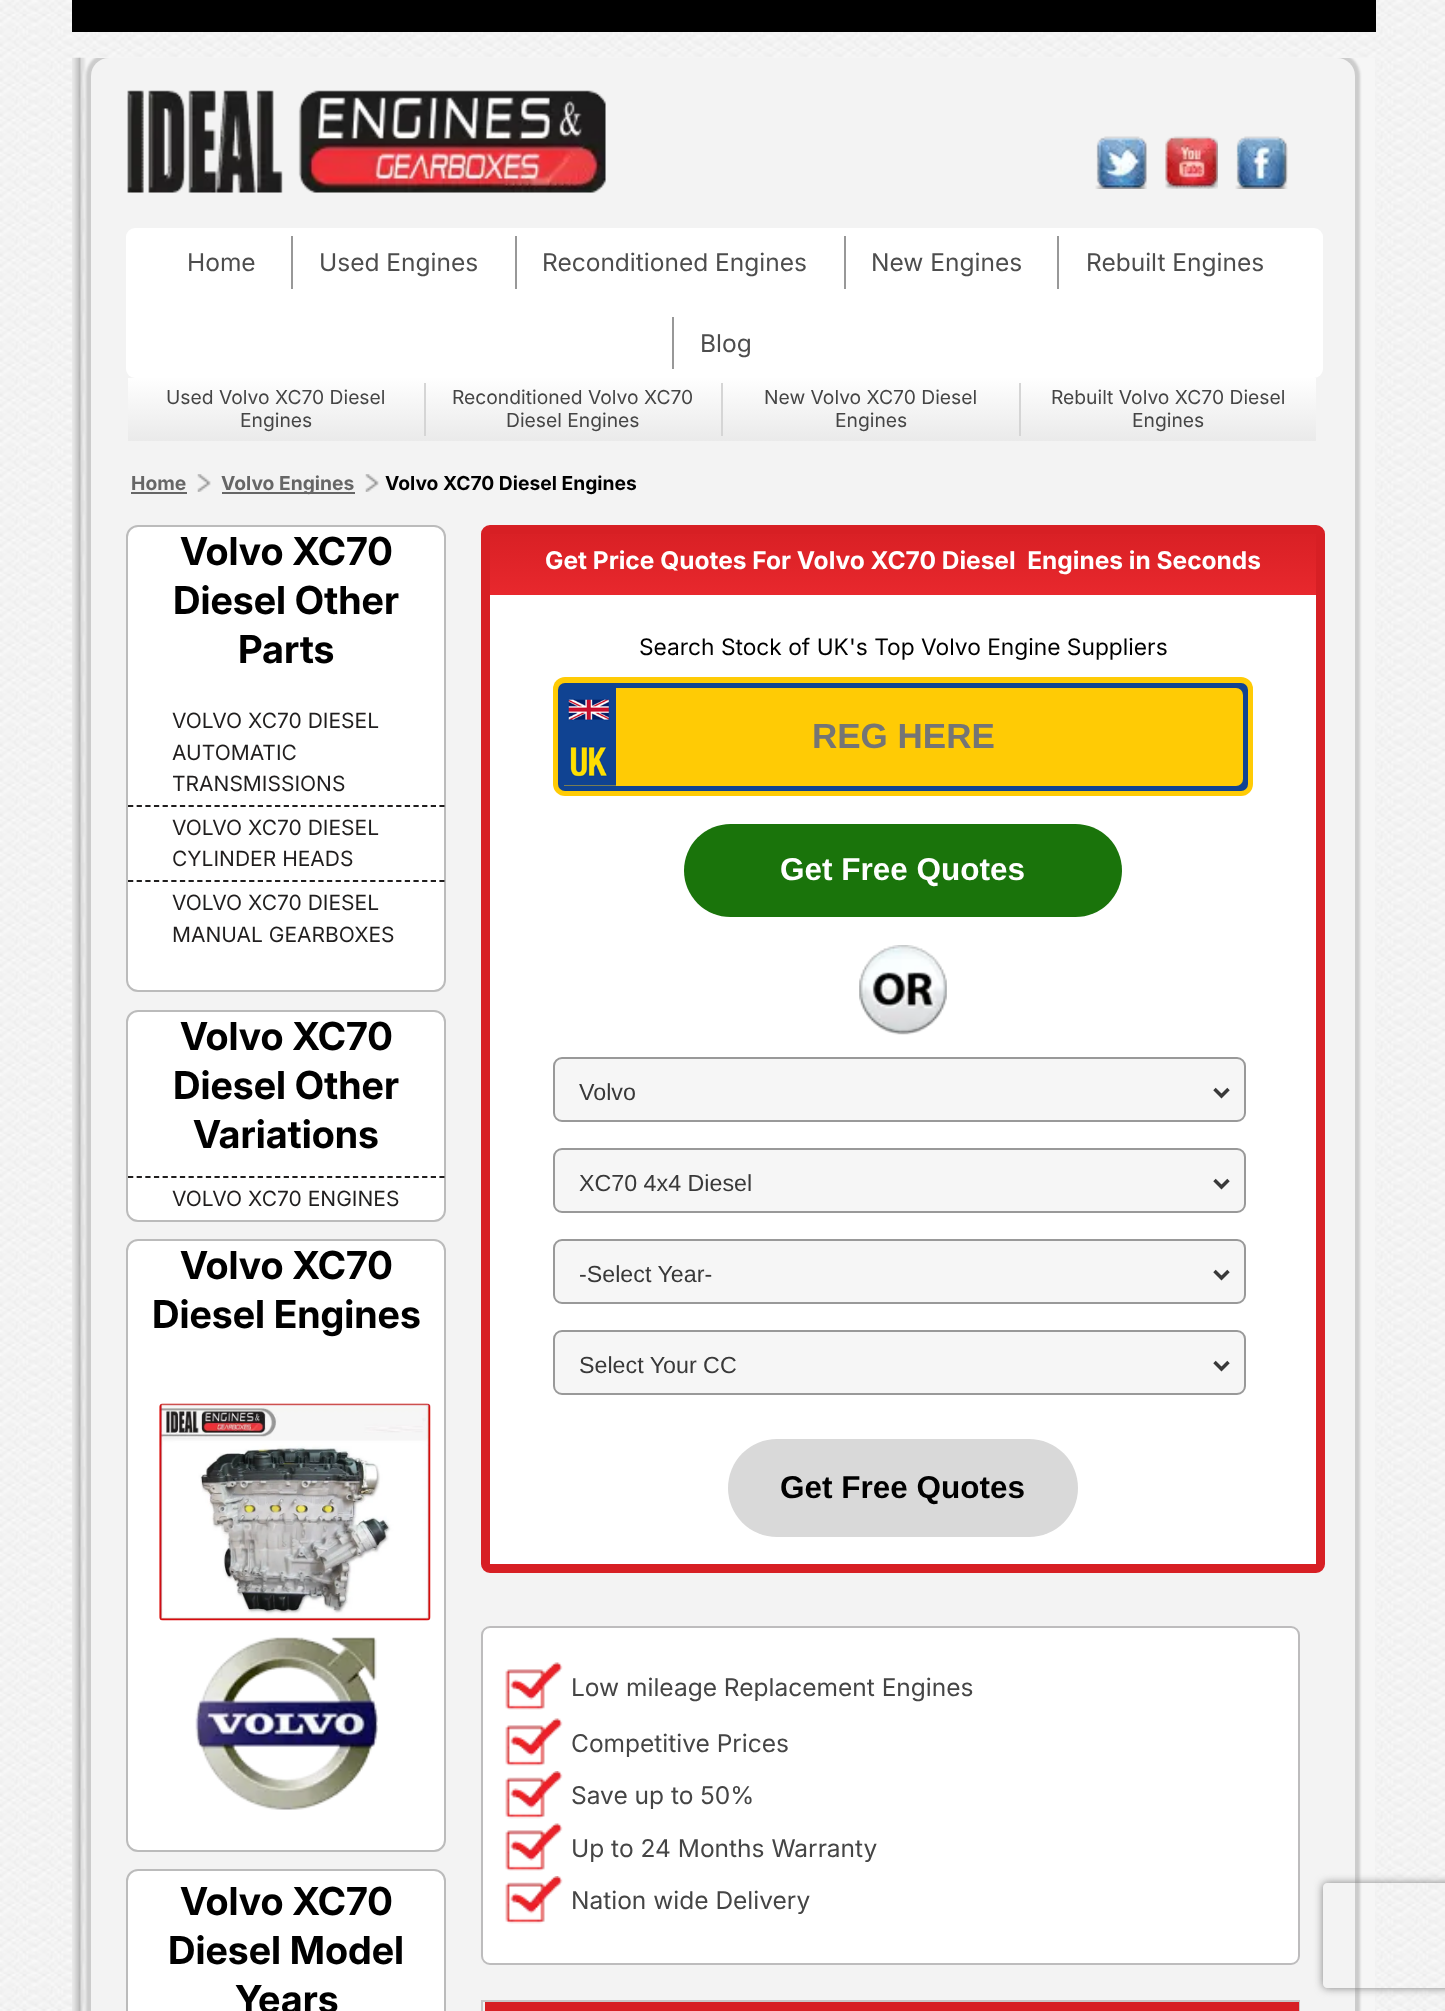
<!DOCTYPE html>
<meta charset="utf-8">
<style>body { margin: 0 } canvas { display: block }</style>
<canvas id="canvas" width="1445" height="2011"></canvas>
<script type="module">
  const canvas = document.getElementById("canvas");
  const ctx = canvas.getContext("2d");
  ctx.miterLimit = 4;
  ctx.fontKerning = "normal";
  async function loadImage(src) {
    const img = new Image();
    img.src = src;
    await img.decode();
    return img;
  }
  let gradient;

  ctx.fillStyle = "#ffffff";
  ctx.fillRect(0, 0, 1445, 2011);
  ctx.drawImage(await loadImage("img1.png"), 0, 0, 1445, 2011);
  ctx.fillStyle = "#000000";
  ctx.fillRect(72, 0, 1304, 32);
  ctx.drawImage(await loadImage("img2.png"), 72, 57, 1303, 1954);
  ctx.save();
  ctx.beginPath();
  ctx.rect(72, 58, 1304, 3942);
  ctx.clip();
  ctx.fillStyle = "#cccccc";
  ctx.filter = "blur(1px)";
  ctx.beginPath();
  ctx.roundRect(86, 53, 1274, 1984, 23);
  ctx.fill();
  ctx.filter = "none";
  ctx.restore();
  ctx.fillStyle = "#f3f3f3";
  ctx.beginPath();
  ctx.roundRect(91, 58, 1264, 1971, 18);
  ctx.fill();
  ctx.drawImage(await loadImage("img3.png"), 1095, 136, 52, 53);
  ctx.drawImage(await loadImage("img4.png"), 1165, 136, 53, 53);
  ctx.drawImage(await loadImage("img5.png"), 1235, 136, 53, 53);
  ctx.drawImage(await loadImage("img6.png"), 127, 90, 479, 103);
  ctx.fillStyle = "#ffffff";
  ctx.beginPath();
  ctx.roundRect(126, 228, 1197, 150, 9);
  ctx.fill();
  ctx.font = "24.5px Inter";
  ctx.fillStyle = "#4d4d4d";
  ctx.fillText("Home", 187, 271);
  ctx.fillStyle = "#989898";
  ctx.fillRect(291, 236, 2, 53);
  ctx.fillStyle = "#4d4d4d";
  ctx.fillText("Used Engines", 319, 271);
  ctx.fillStyle = "#989898";
  ctx.fillRect(515, 236, 2, 53);
  ctx.fillStyle = "#4d4d4d";
  ctx.fillText("Reconditioned Engines", 542, 271);
  ctx.fillStyle = "#989898";
  ctx.fillRect(844, 236, 2, 53);
  ctx.fillStyle = "#4d4d4d";
  ctx.fillText("New Engines", 871, 271);
  ctx.fillStyle = "#989898";
  ctx.fillRect(1057, 236, 2, 53);
  ctx.fillStyle = "#4d4d4d";
  ctx.fillText("Rebuilt Engines", 1086, 271);
  ctx.fillStyle = "#989898";
  ctx.fillRect(672, 317, 2, 52);
  ctx.fillStyle = "#4d4d4d";
  ctx.fillText("Blog", 700, 352);
  gradient = ctx.createLinearGradient(722, 378, 722, 441);
  gradient.addColorStop(0.01, "#fefefe");
  gradient.addColorStop(1, "#eaeaea");
  ctx.fillStyle = gradient;
  ctx.fillRect(128, 378, 1188, 63);
  ctx.fillStyle = "#d5d5d5";
  ctx.fillRect(424, 383, 2, 53);
  ctx.font = "19.25px Inter";
  ctx.fillStyle = "#454545";
  ctx.fillText("Used Volvo XC70 Diesel", 166, 404);
  ctx.fillText("Engines", 240, 427);
  ctx.fillStyle = "#d5d5d5";
  ctx.fillRect(721, 383, 2, 53);
  ctx.fillStyle = "#454545";
  ctx.fillText("Reconditioned Volvo XC70", 452, 404);
  ctx.fillText("Diesel Engines", 506, 427);
  ctx.fillStyle = "#d5d5d5";
  ctx.fillRect(1019, 383, 2, 53);
  ctx.fillStyle = "#454545";
  ctx.fillText("New Volvo XC70 Diesel", 764, 404);
  ctx.fillText("Engines", 835, 427);
  ctx.fillText("Rebuilt Volvo XC70 Diesel", 1051, 404);
  ctx.fillText("Engines", 1132, 427);
  ctx.font = "bold 19.25px 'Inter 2'";
  ctx.fillStyle = "#666666";
  ctx.fillText("Home", 131, 490);
  ctx.fillRect(131, 492, 56, 2);
  ctx.drawImage(await loadImage("img7.png"), 197, 474, 14, 18);
  ctx.fillRect(222, 492, 133, 2);
  ctx.fillText("Volvo Engines", 221, 490);
  ctx.drawImage(await loadImage("img8.png"), 365, 474, 14, 18);
  ctx.fillStyle = "#000000";
  ctx.fillText("Volvo XC70 Diesel Engines", 385, 490);
  ctx.fillStyle = "#ffffff";
  ctx.beginPath();
  ctx.roundRect(127, 526, 318, 465, 11);
  ctx.fill();
  ctx.strokeStyle = "#bbbbbb";
  ctx.lineWidth = 2;
  ctx.stroke();
  ctx.font = "bold 38.5px Inter";
  ctx.fillStyle = "#000000";
  ctx.fillText("Volvo XC70", 180, 565);
  ctx.fillText("Diesel Other", 173, 614);
  ctx.fillText("Parts", 238, 663);
  ctx.font = "21px Inter";
  ctx.fillStyle = "#201e1e";
  ctx.fillText("VOLVO XC70 DIESEL", 172, 728);
  ctx.fillText("AUTOMATIC", 172, 760);
  ctx.fillText("TRANSMISSIONS", 172, 791);
  ctx.beginPath();
  ctx.moveTo(128, 806);
  ctx.lineTo(444.5, 806);
  ctx.strokeStyle = "#201e1e";
  ctx.lineWidth = 1.8;
  ctx.setLineDash([5.25, 3.4]);
  ctx.stroke();
  ctx.fillText("VOLVO XC70 DIESEL", 172, 835);
  ctx.fillText("CYLINDER HEADS", 172, 866);
  ctx.beginPath();
  ctx.moveTo(128, 881);
  ctx.lineTo(444.5, 881);
  ctx.stroke();
  ctx.fillText("VOLVO XC70 DIESEL", 172, 910);
  ctx.fillText("MANUAL GEARBOXES", 172, 942);
  ctx.fillStyle = "#ffffff";
  ctx.beginPath();
  ctx.roundRect(127, 1011, 318, 210, 11);
  ctx.fill();
  ctx.strokeStyle = "#bbbbbb";
  ctx.lineWidth = 2;
  ctx.setLineDash([]);
  ctx.stroke();
  ctx.font = "bold 38.5px Inter";
  ctx.fillStyle = "#000000";
  ctx.fillText("Volvo XC70", 180, 1050);
  ctx.fillText("Diesel Other", 173, 1099);
  ctx.fillText("Variations", 193, 1148);
  ctx.beginPath();
  ctx.moveTo(128, 1177);
  ctx.lineTo(444.5, 1177);
  ctx.strokeStyle = "#201e1e";
  ctx.lineWidth = 1.8;
  ctx.setLineDash([5.25, 3.4]);
  ctx.stroke();
  ctx.font = "21px Inter";
  ctx.fillStyle = "#201e1e";
  ctx.fillText("VOLVO XC70 ENGINES", 172, 1206);
  ctx.fillStyle = "#ffffff";
  ctx.beginPath();
  ctx.roundRect(127, 1240, 318, 611, 11);
  ctx.fill();
  ctx.strokeStyle = "#bbbbbb";
  ctx.lineWidth = 2;
  ctx.setLineDash([]);
  ctx.stroke();
  ctx.font = "bold 38.5px Inter";
  ctx.fillStyle = "#000000";
  ctx.fillText("Volvo XC70", 180, 1279);
  ctx.fillText("Diesel Engines", 152, 1328);
  ctx.drawImage(await loadImage("img9.png"), 159, 1403, 272, 218);
  ctx.drawImage(await loadImage("img10.png"), 195, 1637, 183, 173);
  ctx.fillStyle = "#ffffff";
  ctx.beginPath();
  ctx.roundRect(127, 1870, 318, 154, 11);
  ctx.fill();
  ctx.stroke();
  ctx.fillStyle = "#000000";
  ctx.fillText("Volvo XC70", 180, 1915);
  ctx.fillText("Diesel Model", 168, 1964);
  ctx.fillText("Years", 235, 2013);
  ctx.fillStyle = "#ffffff";
  ctx.beginPath();
  ctx.roundRect(485.5, 529.5, 835, 1039, 4.5);
  ctx.fill();
  ctx.strokeStyle = "#d71f24";
  ctx.lineWidth = 9;
  ctx.stroke();
  gradient = ctx.createLinearGradient(903, 525, 903, 595);
  gradient.addColorStop(0, "#d71f24");
  gradient.addColorStop(1, "#e8282d");
  ctx.fillStyle = gradient;
  ctx.fillRect(490, 534, 826, 61);
  ctx.font = "bold 24.5px 'Inter 2'";
  ctx.fillStyle = "#ffffff";
  ctx.fillText("Get Price Quotes For Volvo XC70 Diesel  Engines in Seconds", 545, 569);
  ctx.font = "22.75px Inter";
  ctx.fillStyle = "#000000";
  ctx.fillText("Search Stock of UK's Top Volvo Engine Suppliers", 639, 655);
  ctx.fillStyle = "#ffcb05";
  ctx.beginPath();
  ctx.roundRect(553, 677, 700, 119, 12);
  ctx.fill();
  ctx.fillStyle = "#104392";
  ctx.beginPath();
  ctx.roundRect(558, 683, 690, 108, 7);
  ctx.fill();
  ctx.fillStyle = "#ffcb05";
  ctx.beginPath();
  ctx.roundRect(564, 688, 679, 98, [0, 7, 7, 0]);
  ctx.fill();
  ctx.drawImage(await loadImage("img11.png"), 564, 688, 52, 98);
  ctx.font = "bold 35px Liberation Sans";
  ctx.fillStyle = "#757575";
  ctx.fillText("REG HERE", 812, 748);
  ctx.fillStyle = "#1a740b";
  ctx.beginPath();
  ctx.roundRect(684, 824, 438, 93, 46.5);
  ctx.fill();
  ctx.font = "bold 31.5px Liberation Sans";
  ctx.fillStyle = "#ffffff";
  ctx.fillText("Get Free Quotes", 780, 880);
  ctx.drawImage(await loadImage("img12.png"), 859, 945, 88, 90);
  ctx.fillStyle = "#f6f6f6";
  ctx.beginPath();
  ctx.roundRect(554, 1058, 691, 63, 8);
  ctx.fill();
  ctx.strokeStyle = "#999999";
  ctx.lineWidth = 2;
  ctx.stroke();
  ctx.beginPath();
  ctx.moveTo(1214.5, 1089);
  ctx.lineTo(1221.5, 1096);
  ctx.lineTo(1228.5, 1089);
  ctx.strokeStyle = "#393939";
  ctx.lineWidth = 3.5;
  ctx.stroke();
  ctx.font = "23.25px Liberation Sans";
  ctx.fillStyle = "#393939";
  ctx.fillText("Volvo", 579, 1100);
  ctx.fillStyle = "#f6f6f6";
  ctx.beginPath();
  ctx.roundRect(554, 1149, 691, 63, 8);
  ctx.fill();
  ctx.strokeStyle = "#999999";
  ctx.lineWidth = 2;
  ctx.stroke();
  ctx.beginPath();
  ctx.moveTo(1214.5, 1180);
  ctx.lineTo(1221.5, 1187);
  ctx.lineTo(1228.5, 1180);
  ctx.strokeStyle = "#393939";
  ctx.lineWidth = 3.5;
  ctx.stroke();
  ctx.fillStyle = "#393939";
  ctx.fillText("XC70 4x4 Diesel", 579, 1191);
  ctx.fillStyle = "#f6f6f6";
  ctx.beginPath();
  ctx.roundRect(554, 1240, 691, 63, 8);
  ctx.fill();
  ctx.strokeStyle = "#999999";
  ctx.lineWidth = 2;
  ctx.stroke();
  ctx.beginPath();
  ctx.moveTo(1214.5, 1271);
  ctx.lineTo(1221.5, 1278);
  ctx.lineTo(1228.5, 1271);
  ctx.strokeStyle = "#393939";
  ctx.lineWidth = 3.5;
  ctx.stroke();
  ctx.fillStyle = "#393939";
  ctx.fillText("-Select Year-", 579, 1282);
  ctx.fillStyle = "#f6f6f6";
  ctx.beginPath();
  ctx.roundRect(554, 1331, 691, 63, 8);
  ctx.fill();
  ctx.strokeStyle = "#999999";
  ctx.lineWidth = 2;
  ctx.stroke();
  ctx.beginPath();
  ctx.moveTo(1214.5, 1362);
  ctx.lineTo(1221.5, 1369);
  ctx.lineTo(1228.5, 1362);
  ctx.strokeStyle = "#393939";
  ctx.lineWidth = 3.5;
  ctx.stroke();
  ctx.fillStyle = "#393939";
  ctx.fillText("Select Your CC", 579, 1373);
  ctx.fillStyle = "#d9d9d9";
  ctx.beginPath();
  ctx.roundRect(728, 1439, 350, 98, 49);
  ctx.fill();
  ctx.font = "bold 31.5px Liberation Sans";
  ctx.fillStyle = "#000000";
  ctx.fillText("Get Free Quotes", 780, 1498);
  ctx.fillStyle = "#ffffff";
  ctx.beginPath();
  ctx.roundRect(482, 1627, 817, 337, 8);
  ctx.fill();
  ctx.strokeStyle = "#bdbcbd";
  ctx.lineWidth = 2;
  ctx.stroke();
  ctx.drawImage(await loadImage("img13.png"), 505, 1662, 58, 48);
  ctx.font = "24.5px Inter";
  ctx.fillStyle = "#454545";
  ctx.fillText("Low mileage Replacement Engines", 571, 1696);
  ctx.drawImage(await loadImage("img13.png"), 505, 1718, 58, 48);
  ctx.fillText("Competitive Prices", 571, 1752);
  ctx.drawImage(await loadImage("img14.png"), 505, 1771, 58, 48);
  ctx.fillText("Save up to 50%", 571, 1804);
  ctx.drawImage(await loadImage("img15.png"), 505, 1823, 58, 48);
  ctx.fillText("Up to 24 Months Warranty", 571, 1857);
  ctx.drawImage(await loadImage("img16.png"), 505, 1876, 58, 48);
  ctx.fillText("Nation wide Delivery", 571, 1909);
  ctx.strokeStyle = "#c7c7c7";
  ctx.strokeRect(482, 2001, 817, 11);
  ctx.fillStyle = "#d71f24";
  ctx.fillRect(485, 2002, 814, 9);
  ctx.save();
  ctx.beginPath();
  ctx.moveTo(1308, 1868);
  ctx.lineTo(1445, 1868);
  ctx.lineTo(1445, 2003);
  ctx.lineTo(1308, 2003);
  ctx.closePath();
  ctx.moveTo(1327, 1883);
  ctx.lineTo(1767, 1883);
  ctx.bezierCurveTo(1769, 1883, 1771, 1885, 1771, 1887);
  ctx.lineTo(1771, 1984);
  ctx.bezierCurveTo(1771, 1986, 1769, 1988, 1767, 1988);
  ctx.lineTo(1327, 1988);
  ctx.bezierCurveTo(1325, 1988, 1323, 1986, 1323, 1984);
  ctx.lineTo(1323, 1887);
  ctx.bezierCurveTo(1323, 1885, 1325, 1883, 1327, 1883);
  ctx.closePath();
  ctx.clip("evenodd");
  ctx.fillStyle = "#808080";
  ctx.filter = "blur(4.5px)";
  ctx.beginPath();
  ctx.roundRect(1323, 1883, 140, 105, 4);
  ctx.fill();
  ctx.filter = "none";
  ctx.restore();
</script>
